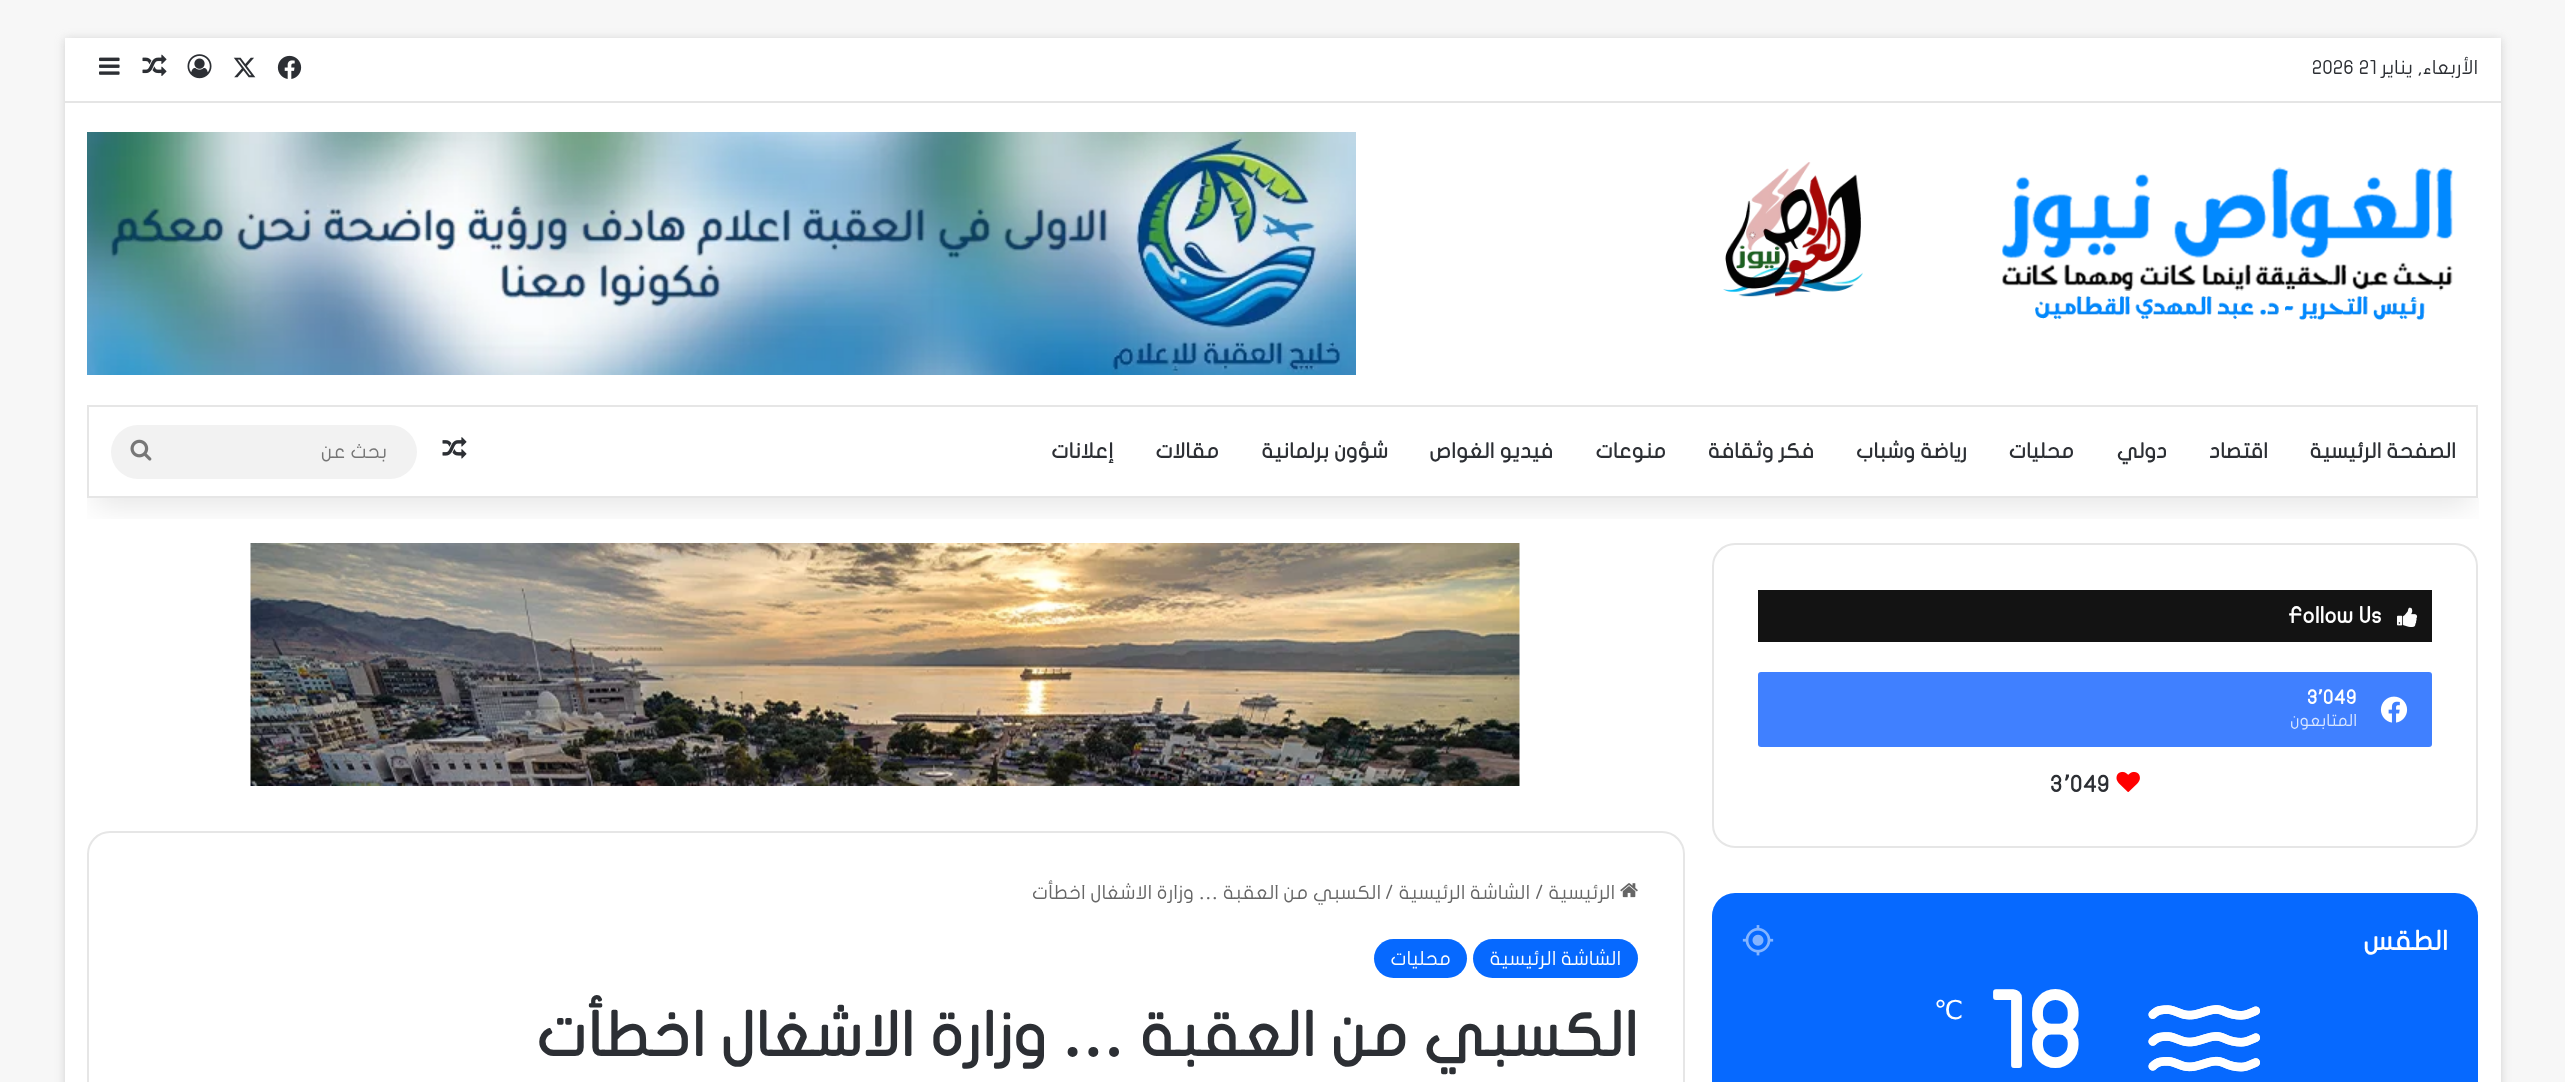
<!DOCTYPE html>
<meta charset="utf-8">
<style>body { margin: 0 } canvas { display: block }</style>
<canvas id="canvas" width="2565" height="1082"></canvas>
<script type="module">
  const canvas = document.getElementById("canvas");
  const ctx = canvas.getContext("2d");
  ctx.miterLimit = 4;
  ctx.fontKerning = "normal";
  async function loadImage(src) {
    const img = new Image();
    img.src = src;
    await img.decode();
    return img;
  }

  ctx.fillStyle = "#f7f7f7";
  ctx.fillRect(0, 0, 2565, 1082);
  ctx.fillStyle = "rgba(171, 171, 171, 0.5)";
  ctx.filter = "blur(5px)";
  ctx.beginPath();
  ctx.rect(65, 39, 2436, 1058);
  ctx.fill();
  ctx.filter = "none";
  ctx.fillStyle = "#ffffff";
  ctx.fillRect(65, 38, 2436, 1044);
  ctx.beginPath();
  ctx.roundRect(1713, 544, 764, 303, 22);
  ctx.strokeStyle = "#e6e6e6";
  ctx.lineWidth = 2;
  ctx.stroke();
  ctx.drawImage(await loadImage("img16.png"), 250, 543, 1270, 243);
  ctx.save();
  ctx.beginPath();
  ctx.rect(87, 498, 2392, 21);
  ctx.clip();
  ctx.fillStyle = "rgba(0, 0, 0, 0.1)";
  ctx.filter = "blur(15px)";
  ctx.beginPath();
  ctx.rect(95, 105, 2376, 401);
  ctx.fill();
  ctx.filter = "none";
  ctx.restore();
  ctx.fillStyle = "#e5e5e5";
  ctx.fillRect(65, 101, 2436, 2);
  ctx.direction = "rtl";
  ctx.font = "19.5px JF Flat";
  ctx.fillStyle = "#2c2f34";
  ctx.fillText("الأربعاء, يناير", 2478, 74);
  ctx.direction = "ltr";
  ctx.fillText("2026 21", 2312, 74);
  ctx.drawImage(await loadImage("img1.png"), 277, 55, 25, 24);
  ctx.drawImage(await loadImage("img2.png"), 233, 57, 23, 21);
  ctx.drawImage(await loadImage("img3.png"), 187, 54, 25, 25);
  ctx.drawImage(await loadImage("img4.png"), 142, 54, 25, 22);
  ctx.drawImage(await loadImage("img5.png"), 99, 57, 21, 18);
  ctx.drawImage(await loadImage("img6.png"), 1723, 162, 730, 158);
  ctx.drawImage(await loadImage("img7.png"), 87, 132, 1269, 243);
  ctx.strokeRect(88, 406, 2389, 91);
  ctx.direction = "rtl";
  ctx.font = "bold 21px JF Flat";
  ctx.fillText("الصفحة الرئيسية", 2456, 458);
  ctx.fillText("اقتصاد", 2268, 458);
  ctx.fillText("دولي", 2167, 458);
  ctx.fillText("محليات", 2074, 458);
  ctx.fillText("رياضة وشباب", 1967, 458);
  ctx.fillText("فكر وثقافة", 1814, 458);
  ctx.fillText("منوعات", 1666, 458);
  ctx.fillText("فيديو الغواص", 1553, 458);
  ctx.fillText("شؤون برلمانية", 1388, 458);
  ctx.fillText("مقالات", 1219, 458);
  ctx.fillText("إعلانات", 1114, 458);
  ctx.drawImage(await loadImage("img8.png"), 442, 437, 25, 22);
  ctx.fillStyle = "#f2f2f2";
  ctx.beginPath();
  ctx.roundRect(111, 425, 306, 54, 27);
  ctx.fill();
  ctx.font = "19.5px JF Flat";
  ctx.fillStyle = "#757575";
  ctx.fillText("بحث عن", 387, 458);
  ctx.drawImage(await loadImage("img9.png"), 130, 439, 22, 22);
  ctx.fillStyle = "#131313";
  ctx.fillRect(1758, 590, 674, 52);
  ctx.drawImage(await loadImage("img10.png"), 2397, 607, 21, 20);
  ctx.direction = "ltr";
  ctx.font = "bold 22.5px JF Flat";
  ctx.fillStyle = "#ffffff";
  ctx.fillText("Follow Us", 2288, 623);
  ctx.fillStyle = "#4080ff";
  ctx.beginPath();
  ctx.roundRect(1758, 672, 674, 75, 3);
  ctx.fill();
  ctx.drawImage(await loadImage("img11.png"), 2380, 696, 28, 27);
  ctx.font = "bold 19.5px JF Flat";
  ctx.fillStyle = "#ffffff";
  ctx.fillText("049", 2323, 704);
  ctx.font = "bold 19.5px DejaVu Sans";
  ctx.fillText("٬", 2317, 704);
  ctx.font = "bold 19.5px JF Flat";
  ctx.fillText("3", 2307, 704);
  ctx.direction = "rtl";
  ctx.font = "16.5px JF Flat";
  ctx.fillStyle = "#d9e6ff";
  ctx.fillText("المتابعون", 2357, 726);
  ctx.drawImage(await loadImage("img12.png"), 2116, 771, 24, 21);
  ctx.direction = "ltr";
  ctx.font = "bold 23px JF Flat";
  ctx.fillStyle = "#2c2f34";
  ctx.fillText("049", 2070, 792);
  ctx.font = "bold 23px DejaVu Sans";
  ctx.fillText("٬", 2063, 792);
  ctx.font = "bold 23px JF Flat";
  ctx.fillText("3", 2050, 792);
  ctx.fillStyle = "#0669ff";
  ctx.beginPath();
  ctx.roundRect(1712, 893, 766, 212, 23);
  ctx.fill();
  ctx.direction = "rtl";
  ctx.font = "bold 27px JF Flat";
  ctx.fillStyle = "#ffffff";
  ctx.fillText("الطقس", 2448, 950);
  ctx.drawImage(await loadImage("img13.png"), 1742, 925, 32, 31);
  ctx.drawImage(await loadImage("img14.png"), 2148, 1005, 112, 67);
  ctx.drawImage(await loadImage("img15.png"), 2148, 1005, 112, 67);
  ctx.direction = "ltr";
  ctx.font = "bold 105px JF Flat";
  ctx.fillText("18", 1988, 1068);
  ctx.font = "26px DejaVu Sans";
  ctx.fillText("℃", 1934, 1019);
  ctx.beginPath();
  ctx.roundRect(88, 832, 1596, 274, 22);
  ctx.stroke();
  ctx.drawImage(await loadImage("img17.png"), 1620, 883, 18, 15);
  ctx.direction = "rtl";
  ctx.font = "19.5px JF Flat";
  ctx.fillStyle = "#666666";
  ctx.fillText("الرئيسية", 1615, 899);
  ctx.direction = "ltr";
  ctx.fillText("/", 1535, 899);
  ctx.direction = "rtl";
  ctx.fillText("الشاشة الرئيسية", 1530, 899);
  ctx.direction = "ltr";
  ctx.fillText("/", 1385, 899);
  ctx.direction = "rtl";
  ctx.fillText("الكسبي من العقبة", 1381, 899);
  ctx.font = "19.5px Liberation Serif";
  ctx.fillText("…", 1218, 899);
  ctx.font = "19.5px JF Flat";
  ctx.fillText("وزارة الاشغال اخطأت", 1194, 899);
  ctx.fillStyle = "#0669ff";
  ctx.beginPath();
  ctx.roundRect(1473, 939, 165, 39, 19.5);
  ctx.fill();
  ctx.fillStyle = "#ffffff";
  ctx.fillText("الشاشة الرئيسية", 1621, 965);
  ctx.fillStyle = "#0669ff";
  ctx.beginPath();
  ctx.roundRect(1374, 939, 93, 39, 19.5);
  ctx.fill();
  ctx.fillStyle = "#ffffff";
  ctx.fillText("محليات", 1451, 965);
  ctx.font = "bold 61.5px JF Flat";
  ctx.fillStyle = "#2c2f34";
  ctx.fillText("الكسبي من العقبة", 1638, 1056);
  ctx.font = "bold 61.5px Liberation Serif";
  ctx.fillText("…", 1124, 1056);
  ctx.font = "bold 61.5px JF Flat";
  ctx.fillText("وزارة الاشغال اخطأت", 1047, 1056);
</script>
